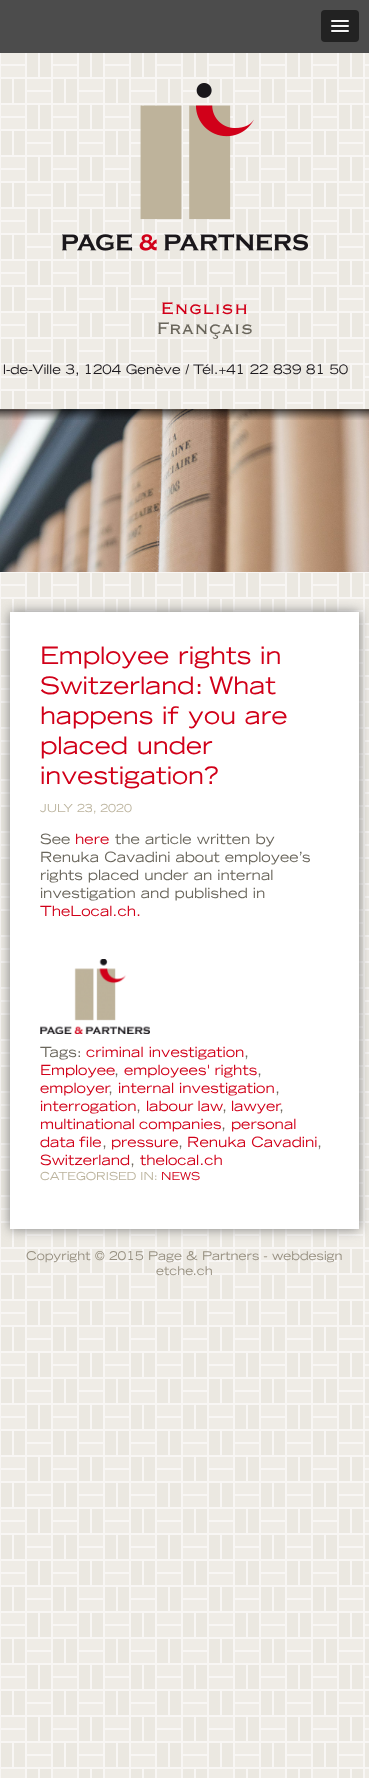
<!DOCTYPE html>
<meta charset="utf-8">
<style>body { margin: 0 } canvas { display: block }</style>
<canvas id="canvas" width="369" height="1778"></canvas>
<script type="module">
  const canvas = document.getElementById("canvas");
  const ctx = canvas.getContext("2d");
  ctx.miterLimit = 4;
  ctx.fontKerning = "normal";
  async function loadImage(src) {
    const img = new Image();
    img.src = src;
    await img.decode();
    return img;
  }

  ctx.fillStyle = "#ffffff";
  ctx.fillRect(0, 0, 369, 1778);
  ctx.drawImage(await loadImage("img1.png"), 0, 53, 369, 1725);
  ctx.fillStyle = "#4c4c4c";
  ctx.fillRect(0, 0, 369, 53);
  ctx.fillStyle = "#222222";
  ctx.beginPath();
  ctx.roundRect(321, 10, 38, 32, 4);
  ctx.fill();
  ctx.fillStyle = "#1a1a1a";
  ctx.beginPath();
  ctx.moveTo(331, 21.5);
  ctx.bezierCurveTo(330, 23.5, 334.5, 23, 334.5, 23);
  ctx.lineTo(345.5, 23);
  ctx.bezierCurveTo(345.5, 23, 350, 23.5, 349, 21.5);
  ctx.bezierCurveTo(348, 22.5, 341.5, 22, 340, 22);
  ctx.bezierCurveTo(338.5, 22, 332, 22.5, 331, 21.5);
  ctx.closePath();
  ctx.fill();
  ctx.fillStyle = "#f5f5f5";
  ctx.beginPath();
  ctx.roundRect(331, 20, 18, 2, 1);
  ctx.fill();
  ctx.fillStyle = "#1a1a1a";
  ctx.beginPath();
  ctx.moveTo(331, 26.5);
  ctx.bezierCurveTo(330, 28.5, 334.5, 28, 334.5, 28);
  ctx.lineTo(345.5, 28);
  ctx.bezierCurveTo(345.5, 28, 350, 28.5, 349, 26.5);
  ctx.bezierCurveTo(348, 27.5, 341.5, 27, 340, 27);
  ctx.bezierCurveTo(338.5, 27, 332, 27.5, 331, 26.5);
  ctx.closePath();
  ctx.fill();
  ctx.fillStyle = "#f5f5f5";
  ctx.beginPath();
  ctx.roundRect(331, 25, 18, 2, 1);
  ctx.fill();
  ctx.fillStyle = "#1a1a1a";
  ctx.beginPath();
  ctx.moveTo(331, 31.5);
  ctx.bezierCurveTo(330, 33.5, 334.5, 33, 334.5, 33);
  ctx.lineTo(345.5, 33);
  ctx.bezierCurveTo(345.5, 33, 350, 33.5, 349, 31.5);
  ctx.bezierCurveTo(348, 32.5, 341.5, 32, 340, 32);
  ctx.bezierCurveTo(338.5, 32, 332, 32.5, 331, 31.5);
  ctx.closePath();
  ctx.fill();
  ctx.fillStyle = "#f5f5f5";
  ctx.beginPath();
  ctx.roundRect(331, 30, 18, 2, 1);
  ctx.fill();
  ctx.drawImage(await loadImage("img2.png"), 62, 83, 246, 168);
  ctx.font = "22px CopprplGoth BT";
  ctx.fillStyle = "#d10019";
  ctx.fillText("English", 160, 314);
  ctx.fillStyle = "#6a665c";
  ctx.fillText("Français", 156, 334);
  ctx.font = "13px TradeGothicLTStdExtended";
  ctx.fillStyle = "#1a171c";
  ctx.fillText("l-de-Ville 3, 1204 Genève / Tél.+41 22 839 81 50", 3, 374);
  ctx.drawImage(await loadImage("img3.png"), 0, 409, 369, 163);
  ctx.drawImage(await loadImage("img4.png"), 0, 409, 369, 11);
  ctx.fillStyle = "#7f7f7f";
  ctx.filter = "blur(6px)";
  ctx.beginPath();
  ctx.rect(10, 612, 349, 617);
  ctx.fill();
  ctx.filter = "none";
  ctx.fillStyle = "#ffffff";
  ctx.fillRect(10, 612, 349, 617);
  ctx.font = "24px TradeGothicLTStdExtended";
  ctx.fillStyle = "#d10019";
  ctx.fillText("Employee rights in", 40, 664);
  ctx.fillText("Switzerland: What", 40, 694);
  ctx.fillText("happens if you are", 40, 724);
  ctx.fillText("placed under", 40, 754);
  ctx.fillText("investigation?", 40, 784);
  ctx.font = "11px TradeGothicLTStdExtended";
  ctx.fillStyle = "#bcb49e";
  ctx.fillText("JULY 23, 2020", 40, 812);
  ctx.font = "14px TradeGothicLTStdExtended";
  ctx.fillStyle = "#6a665c";
  ctx.fillText("See", 40, 844);
  ctx.fillStyle = "#d10019";
  ctx.fillText("here", 75, 844);
  ctx.fillStyle = "#6a665c";
  ctx.fillText("the article written by", 115, 844);
  ctx.fillText("Renuka Cavadini about employee’s", 40, 862);
  ctx.fillText("rights placed under an internal", 40, 880);
  ctx.fillText("investigation and published in", 40, 898);
  ctx.fillStyle = "#d10019";
  ctx.fillText("TheLocal.ch.", 40, 916);
  ctx.drawImage(await loadImage("img5.png"), 40, 959, 110, 75);
  ctx.fillStyle = "#6a665c";
  ctx.fillText("Tags:", 40, 1057);
  ctx.fillStyle = "#d10019";
  ctx.fillText("criminal investigation", 86, 1057);
  ctx.fillStyle = "#6a665c";
  ctx.fillText(",", 244, 1057);
  ctx.fillStyle = "#d10019";
  ctx.fillText("Employee", 40, 1075);
  ctx.fillStyle = "#6a665c";
  ctx.fillText(",", 114, 1075);
  ctx.wordSpacing = "-1px";
  ctx.fillStyle = "#d10019";
  ctx.fillText("employees' rights", 124, 1075);
  ctx.wordSpacing = "0px";
  ctx.fillStyle = "#6a665c";
  ctx.fillText(",", 257, 1075);
  ctx.fillStyle = "#d10019";
  ctx.fillText("employer", 40, 1093);
  ctx.fillText("internal investigation", 118, 1093);
  ctx.fillStyle = "#6a665c";
  ctx.fillText(",", 108, 1093);
  ctx.fillText(",", 275, 1093);
  ctx.fillStyle = "#d10019";
  ctx.fillText("interrogation", 40, 1111);
  ctx.fillStyle = "#6a665c";
  ctx.fillText(",", 136, 1111);
  ctx.wordSpacing = "-1px";
  ctx.fillStyle = "#d10019";
  ctx.fillText("labour law", 146, 1111);
  ctx.wordSpacing = "0px";
  ctx.fillStyle = "#6a665c";
  ctx.fillText(",", 222, 1111);
  ctx.fillStyle = "#d10019";
  ctx.fillText("lawyer", 231, 1111);
  ctx.fillStyle = "#6a665c";
  ctx.fillText(",", 279, 1111);
  ctx.wordSpacing = "-1px";
  ctx.fillStyle = "#d10019";
  ctx.fillText("multinational companies", 40, 1129);
  ctx.wordSpacing = "0px";
  ctx.fillStyle = "#6a665c";
  ctx.fillText(",", 221, 1129);
  ctx.fillStyle = "#d10019";
  ctx.fillText("personal", 231, 1129);
  ctx.wordSpacing = "-1px";
  ctx.fillText("data file", 40, 1147);
  ctx.wordSpacing = "0px";
  ctx.fillStyle = "#6a665c";
  ctx.fillText(",", 102, 1147);
  ctx.fillStyle = "#d10019";
  ctx.fillText("pressure", 111, 1147);
  ctx.fillStyle = "#6a665c";
  ctx.fillText(",", 178, 1147);
  ctx.fillStyle = "#d10019";
  ctx.fillText("Renuka Cavadini", 187, 1147);
  ctx.fillStyle = "#6a665c";
  ctx.fillText(",", 317, 1147);
  ctx.fillStyle = "#d10019";
  ctx.fillText("Switzerland", 40, 1165);
  ctx.fillStyle = "#6a665c";
  ctx.fillText(",", 130, 1165);
  ctx.fillStyle = "#d10019";
  ctx.fillText("thelocal.ch", 140, 1165);
  ctx.font = "11px TradeGothicLTStdExtended";
  ctx.fillStyle = "#bcb49e";
  ctx.fillText("CATEGORISED IN:", 40, 1180);
  ctx.fillStyle = "#d10019";
  ctx.fillText("NEWS", 161, 1180);
  ctx.font = "12px TradeGothicLTStdExtended";
  ctx.fillStyle = "#979081";
  ctx.fillText("Copyright © 2015 Page & Partners - webdesign", 26, 1260);
  ctx.fillText("etche.ch", 156, 1275);
</script>
